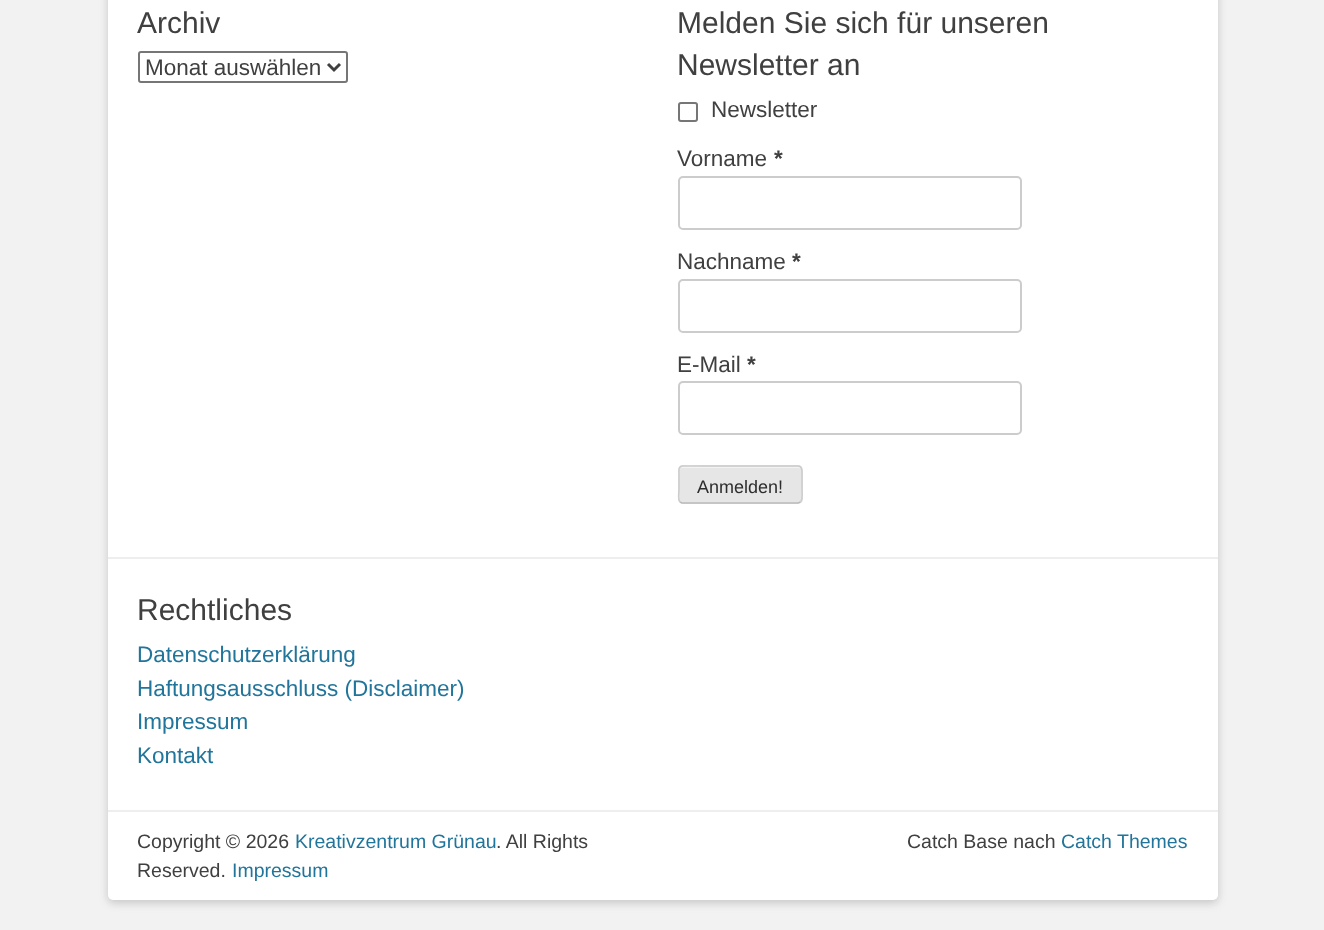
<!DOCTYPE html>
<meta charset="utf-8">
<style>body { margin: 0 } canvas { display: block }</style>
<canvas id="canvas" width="1324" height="930"></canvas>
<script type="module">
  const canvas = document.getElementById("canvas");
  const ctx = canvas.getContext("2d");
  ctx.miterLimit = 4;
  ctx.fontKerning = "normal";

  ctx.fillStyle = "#f2f2f2";
  ctx.fillRect(0, 0, 1324, 930);
  ctx.fillStyle = "rgba(100, 100, 100, 0.3)";
  ctx.filter = "blur(4.5px)";
  ctx.beginPath();
  ctx.roundRect(108, -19, 1110, 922, 5);
  ctx.fill();
  ctx.filter = "none";
  ctx.fillStyle = "#ffffff";
  ctx.beginPath();
  ctx.roundRect(108, -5, 1110, 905, 5);
  ctx.fill();
  ctx.font = "30px Liberation Sans";
  ctx.fillStyle = "#404040";
  ctx.fillText("Archiv", 137, 33);
  ctx.beginPath();
  ctx.roundRect(139, 52, 208, 30, 2);
  ctx.strokeStyle = "#767676";
  ctx.lineWidth = 2;
  ctx.stroke();
  ctx.beginPath();
  ctx.moveTo(328, 64);
  ctx.lineTo(334, 70);
  ctx.lineTo(340, 64);
  ctx.strokeStyle = "#404040";
  ctx.lineWidth = 3;
  ctx.stroke();
  ctx.font = "22.5px Liberation Sans";
  ctx.fillText("Monat auswählen", 145, 75);
  ctx.font = "30px Liberation Sans";
  ctx.fillText("Melden Sie sich für unseren", 677, 33);
  ctx.fillText("Newsletter an", 677, 75);
  ctx.beginPath();
  ctx.roundRect(679, 103, 18, 18, 2);
  ctx.strokeStyle = "#767676";
  ctx.lineWidth = 2;
  ctx.stroke();
  ctx.font = "22.5px Liberation Sans";
  ctx.fillText("Newsletter", 711, 117);
  ctx.fillText("Vorname", 677, 166);
  ctx.font = "bold 22.5px Liberation Sans";
  ctx.fillText("*", 774, 166);
  ctx.beginPath();
  ctx.roundRect(679, 177, 342, 52, 4);
  ctx.strokeStyle = "#cccccc";
  ctx.stroke();
  ctx.font = "22.5px Liberation Sans";
  ctx.fillText("Nachname", 677, 269);
  ctx.font = "bold 22.5px Liberation Sans";
  ctx.fillText("*", 792, 269);
  ctx.beginPath();
  ctx.roundRect(679, 280, 342, 52, 4);
  ctx.stroke();
  ctx.font = "22.5px Liberation Sans";
  ctx.fillText("E-Mail", 677, 372);
  ctx.font = "bold 22.5px Liberation Sans";
  ctx.fillText("*", 747, 372);
  ctx.beginPath();
  ctx.roundRect(679, 382, 342, 52, 4);
  ctx.stroke();
  ctx.fillStyle = "#e6e6e6";
  ctx.beginPath();
  ctx.roundRect(678, 465, 125, 39, 5);
  ctx.fill();
  ctx.fillStyle = "#f3f3f3";
  ctx.beginPath();
  ctx.moveTo(682, 468);
  ctx.lineTo(798, 468);
  ctx.bezierCurveTo(800, 468, 801, 469, 801, 471);
  ctx.bezierCurveTo(801, 469, 800, 467, 798, 467);
  ctx.lineTo(702, 467);
  ctx.bezierCurveTo(701, 467, 680, 462, 680, 471);
  ctx.bezierCurveTo(680, 469, 681, 468, 682, 468);
  ctx.closePath();
  ctx.fill();
  ctx.beginPath();
  ctx.moveTo(800.5, 502);
  ctx.lineTo(798, 503);
  ctx.lineTo(682, 503);
  ctx.lineTo(680, 502);
  ctx.strokeStyle = "#bbbbbb";
  ctx.lineWidth = 1.5;
  ctx.stroke();
  ctx.beginPath();
  ctx.moveTo(680, 502);
  ctx.bezierCurveTo(677.5, 499.5, 679, 492, 679, 489.5);
  ctx.lineTo(679, 474.5);
  ctx.bezierCurveTo(679, 471.5, 678, 466, 682.5, 466);
  ctx.lineTo(798, 466);
  ctx.bezierCurveTo(802.5, 466, 802, 471.5, 802, 474.5);
  ctx.lineTo(802, 489.5);
  ctx.bezierCurveTo(802, 492, 803, 499.5, 800.5, 502);
  ctx.strokeStyle = "#cccccc";
  ctx.stroke();
  ctx.font = "18px Liberation Sans";
  ctx.fillStyle = "#2e2e2e";
  ctx.fillText("Anmelden!", 697, 493);
  ctx.fillStyle = "#eeeeee";
  ctx.fillRect(108, 557, 1110, 2);
  ctx.font = "30px Liberation Sans";
  ctx.fillStyle = "#404040";
  ctx.fillText("Rechtliches", 137, 620);
  ctx.font = "22.5px Liberation Sans";
  ctx.fillStyle = "#21759b";
  ctx.fillText("Datenschutzerklärung", 137, 662);
  ctx.fillText("Haftungsausschluss (Disclaimer)", 137, 696);
  ctx.fillText("Impressum", 137, 729);
  ctx.fillText("Kontakt", 137, 763);
  ctx.fillStyle = "#eeeeee";
  ctx.fillRect(108, 810, 1110, 2);
  ctx.font = "19.5px Liberation Sans";
  ctx.fillStyle = "#404040";
  ctx.fillText("Copyright © 2026", 137, 848);
  ctx.fillStyle = "#21759b";
  ctx.fillText("Kreativzentrum Grünau", 295, 848);
  ctx.fillStyle = "#404040";
  ctx.fillText(". All Rights", 496, 848);
  ctx.fillText("Reserved.", 137, 877);
  ctx.fillStyle = "#21759b";
  ctx.fillText("Impressum", 232, 877);
  ctx.fillStyle = "#404040";
  ctx.fillText("Catch Base nach", 907, 848);
  ctx.fillStyle = "#21759b";
  ctx.fillText("Catch Themes", 1061, 848);
</script>
